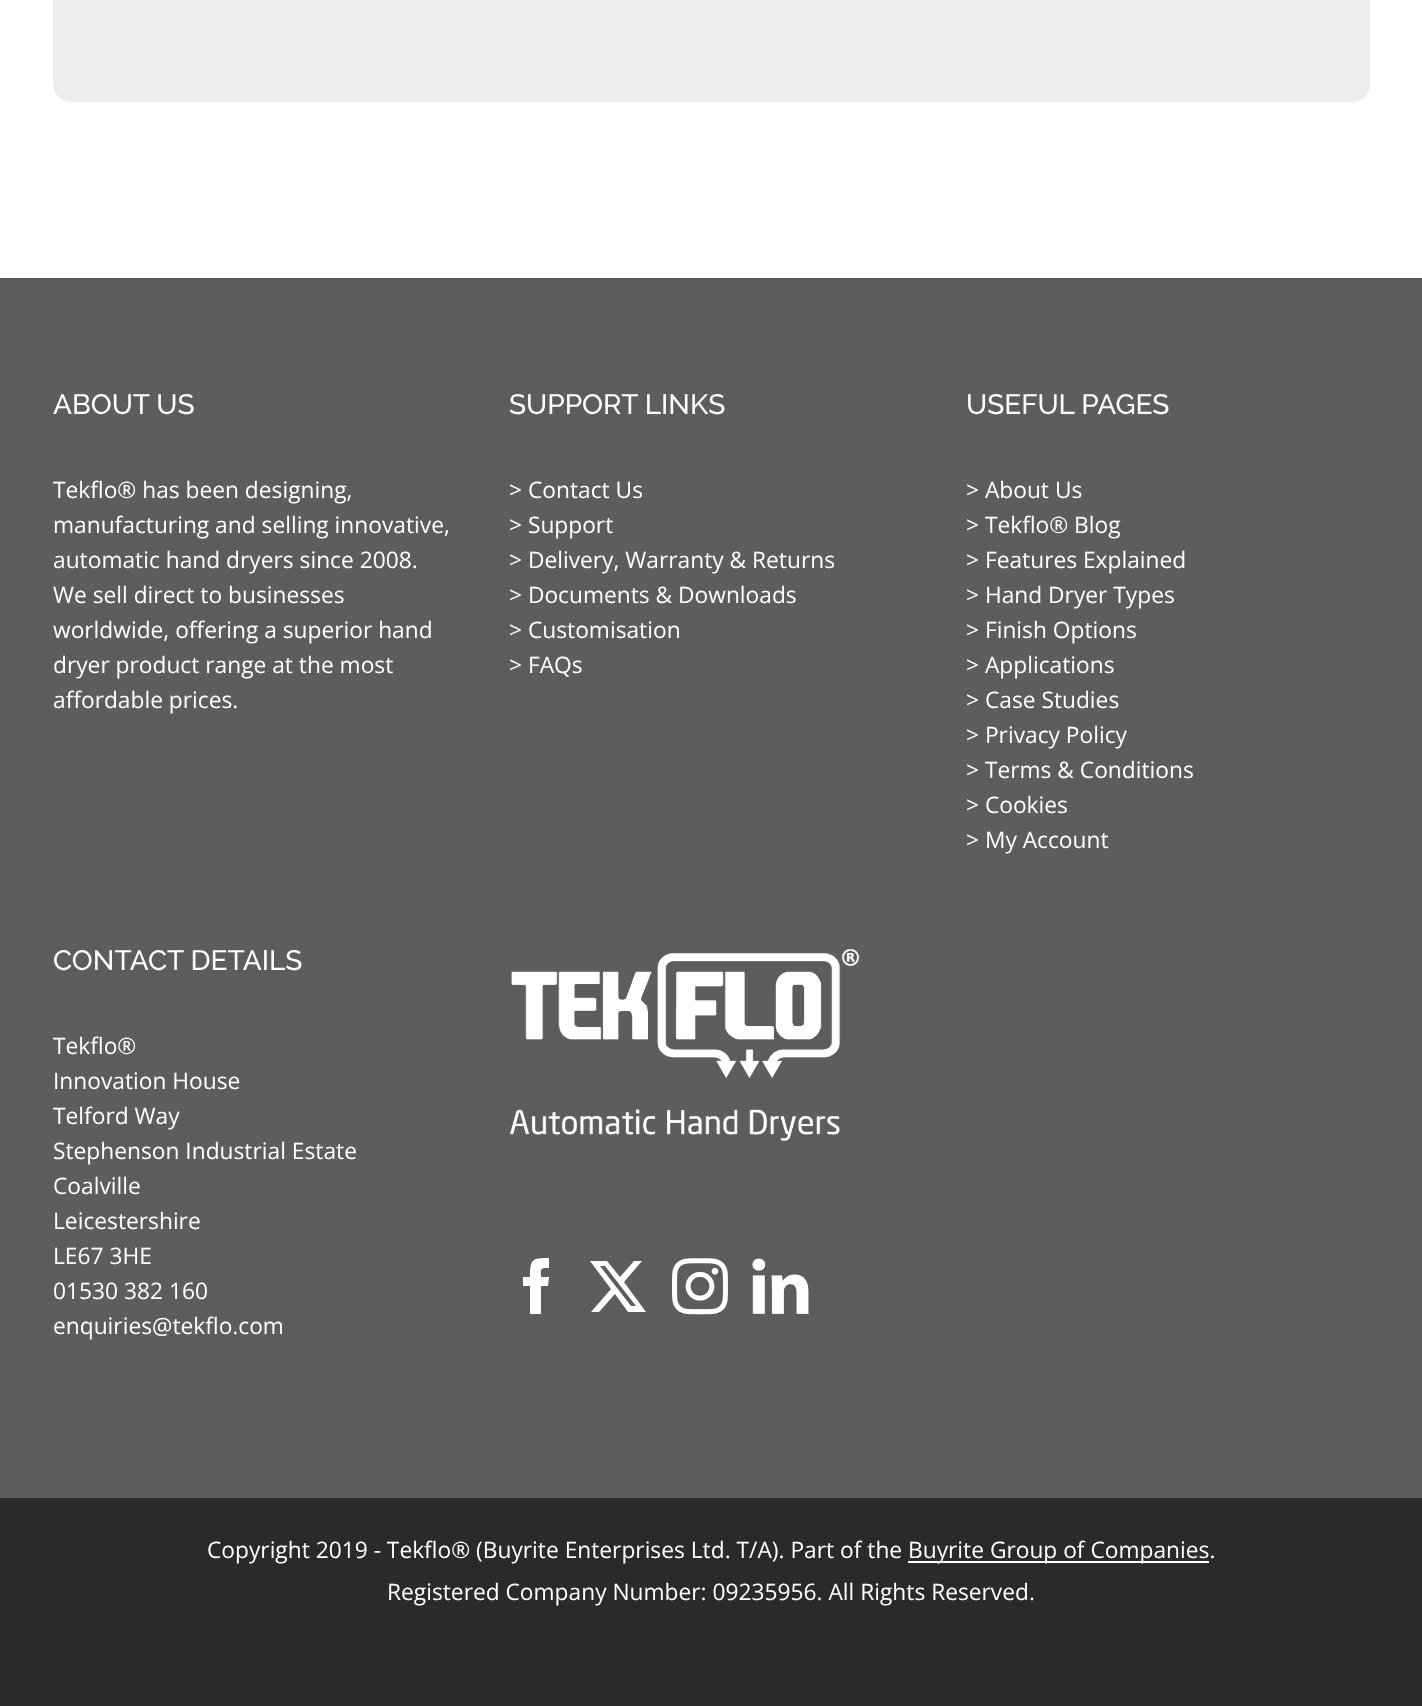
<!DOCTYPE html>
<meta charset="utf-8">
<style>body { margin: 0 } canvas { display: block }</style>
<canvas id="canvas" width="1422" height="1706"></canvas>
<script type="module">
  const canvas = document.getElementById("canvas");
  const ctx = canvas.getContext("2d");
  ctx.miterLimit = 4;
  ctx.fontKerning = "normal";
  async function loadImage(src) {
    const img = new Image();
    img.src = src;
    await img.decode();
    return img;
  }

  ctx.fillStyle = "#ffffff";
  ctx.fillRect(0, 0, 1422, 1706);
  ctx.fillStyle = "#ededed";
  ctx.beginPath();
  ctx.roundRect(53, -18, 1317, 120, 18);
  ctx.fill();
  ctx.fillStyle = "#5d5d5e";
  ctx.fillRect(0, 278, 1422, 1220);
  ctx.font = "100 28px Raleway";
  ctx.fillStyle = "#ffffff";
  ctx.fillText("ABOUT US", 53, 414);
  ctx.font = "22.75px Open Sans";
  ctx.fillText("Tekflo® has been designing,", 53, 498);
  ctx.fillText("manufacturing and selling innovative,", 53, 533);
  ctx.fillText("automatic hand dryers since 2008.", 53, 568);
  ctx.fillText("We sell direct to businesses", 53, 603);
  ctx.fillText("worldwide, offering a superior hand", 53, 638);
  ctx.fillText("dryer product range at the most", 53, 673);
  ctx.fillText("affordable prices.", 53, 708);
  ctx.font = "100 28px Raleway";
  ctx.fillText("SUPPORT LINKS", 509, 414);
  ctx.font = "22.75px Open Sans";
  ctx.fillText("> Contact Us", 509, 498);
  ctx.fillText("> Support", 509, 533);
  ctx.fillText("> Delivery, Warranty & Returns", 509, 568);
  ctx.fillText("> Documents & Downloads", 509, 603);
  ctx.fillText("> Customisation", 509, 638);
  ctx.fillText("> FAQs", 509, 673);
  ctx.font = "100 28px Raleway";
  ctx.fillText("USEFUL PAGES", 966, 414);
  ctx.font = "22.75px Open Sans";
  ctx.fillText("> About Us", 966, 498);
  ctx.fillText("> Tekflo® Blog", 966, 533);
  ctx.fillText("> Features Explained", 966, 568);
  ctx.fillText("> Hand Dryer Types", 966, 603);
  ctx.fillText("> Finish Options", 966, 638);
  ctx.fillText("> Applications", 966, 673);
  ctx.fillText("> Case Studies", 966, 708);
  ctx.fillText("> Privacy Policy", 966, 743);
  ctx.fillText("> Terms & Conditions", 966, 778);
  ctx.fillText("> Cookies", 966, 813);
  ctx.fillText("> My Account", 966, 848);
  ctx.font = "100 28px Raleway";
  ctx.fillText("CONTACT DETAILS", 53, 970);
  ctx.font = "22.75px Open Sans";
  ctx.fillText("Tekflo®", 53, 1054);
  ctx.fillText("Innovation House", 53, 1089);
  ctx.fillText("Telford Way", 53, 1124);
  ctx.fillText("Stephenson Industrial Estate", 53, 1159);
  ctx.fillText("Coalville", 53, 1194);
  ctx.fillText("Leicestershire", 53, 1229);
  ctx.fillText("LE67 3HE", 53, 1264);
  ctx.fillText("01530 382 160", 53, 1299);
  ctx.fillText("enquiries@tekflo.com", 53, 1334);
  ctx.drawImage(await loadImage("img1.png"), 510, 949, 350, 192);
  ctx.beginPath();
  ctx.moveTo(541, 1314);
  ctx.lineTo(530, 1314);
  ctx.lineTo(530, 1286);
  ctx.lineTo(523, 1286);
  ctx.lineTo(523, 1277);
  ctx.lineTo(530, 1277);
  ctx.bezierCurveTo(530, 1259, 532, 1258, 549, 1258);
  ctx.lineTo(549, 1268);
  ctx.bezierCurveTo(540, 1268, 541, 1268, 541, 1277);
  ctx.lineTo(549, 1277);
  ctx.lineTo(548, 1286);
  ctx.lineTo(541, 1286);
  ctx.closePath();
  ctx.fill();
  ctx.beginPath();
  ctx.moveTo(634, 1261);
  ctx.lineTo(642, 1261);
  ctx.lineTo(624, 1282);
  ctx.lineTo(646, 1312);
  ctx.lineTo(628, 1312);
  ctx.lineTo(615, 1294);
  ctx.lineTo(599, 1312);
  ctx.lineTo(591, 1312);
  ctx.lineTo(611, 1289);
  ctx.lineTo(590, 1261);
  ctx.lineTo(607, 1261);
  ctx.lineTo(620, 1277);
  ctx.closePath();
  ctx.moveTo(631, 1306);
  ctx.lineTo(636, 1306);
  ctx.lineTo(605, 1266);
  ctx.lineTo(600, 1266);
  ctx.closePath();
  ctx.fill();
  ctx.drawImage(await loadImage("img2.png"), 672, 1258, 56, 57);
  ctx.drawImage(await loadImage("img3.png"), 752, 1258, 57, 56);
  ctx.fillStyle = "#282a2b";
  ctx.fillRect(0, 1498, 1422, 208);
  ctx.fillStyle = "#ffffff";
  ctx.fillText("Copyright 2019 - Tekflo® (Buyrite Enterprises Ltd. T/A). Part of the", 207, 1558);
  ctx.fillRect(908, 1561, 301, 2);
  ctx.fillText("Buyrite Group of Companies.", 908, 1558);
  ctx.fillText("Registered Company Number: 09235956. All Rights Reserved.", 387, 1600);
</script>
